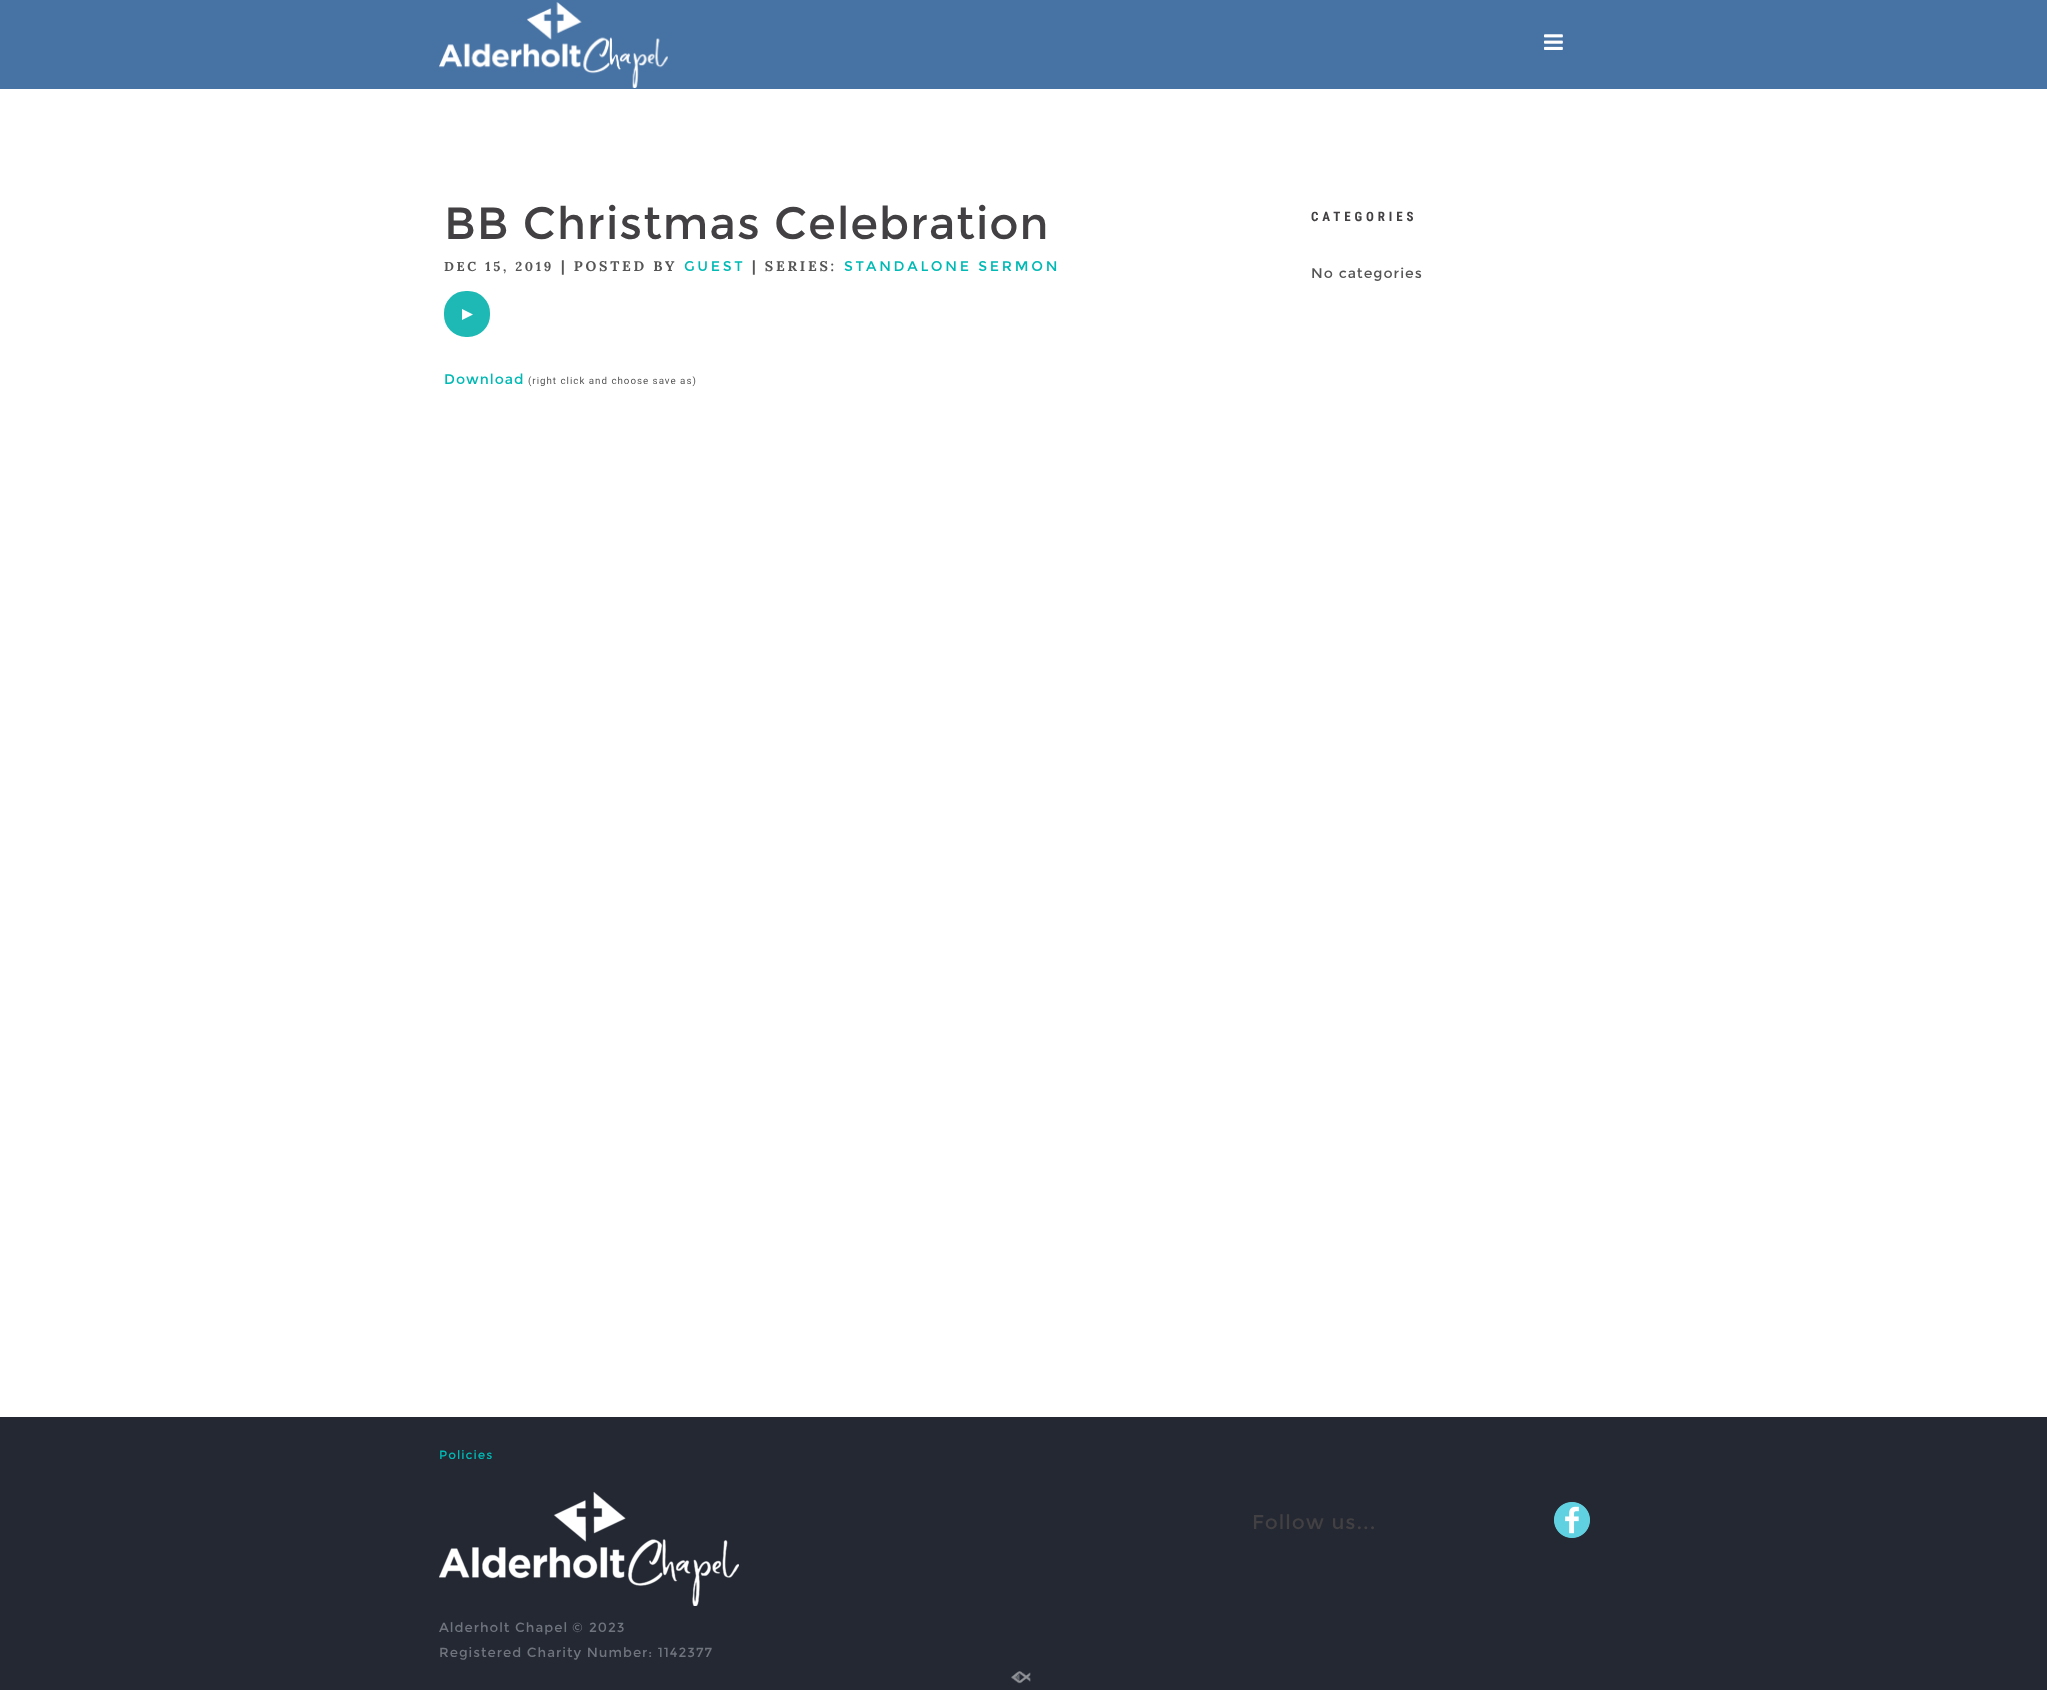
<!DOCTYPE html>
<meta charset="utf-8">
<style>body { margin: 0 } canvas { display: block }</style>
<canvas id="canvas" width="2047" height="1690"></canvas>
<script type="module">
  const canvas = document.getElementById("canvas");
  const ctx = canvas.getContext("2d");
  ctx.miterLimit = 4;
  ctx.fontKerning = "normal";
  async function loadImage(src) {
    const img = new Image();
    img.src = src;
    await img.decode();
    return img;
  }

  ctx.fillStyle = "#ffffff";
  ctx.fillRect(0, 0, 2047, 1690);
  ctx.fillStyle = "#4672a4";
  ctx.fillRect(0, 0, 2047, 89);
  ctx.drawImage(await loadImage("img1.png"), 439, 2, 229, 86);
  ctx.drawImage(await loadImage("img2.png"), 1544, 34, 19, 16);
  ctx.letterSpacing = "1px";
  ctx.font = "45px Montserrat";
  ctx.fillStyle = "#424042";
  ctx.fillText("BB Christmas Celebration", 444, 239);
  ctx.letterSpacing = "2.75px";
  ctx.font = "bold 13px Lora";
  ctx.fillStyle = "#555555";
  ctx.fillText("DEC 15, 2019", 444, 271);
  ctx.font = "bold 14px Lora";
  ctx.fillText("| POSTED BY", 561, 271);
  ctx.font = "14px Montserrat";
  ctx.fillStyle = "#00b9b4";
  ctx.fillText("GUEST", 684, 271);
  ctx.font = "bold 14px Lora";
  ctx.fillStyle = "#555555";
  ctx.fillText("| SERIES:", 752, 271);
  ctx.font = "14px Montserrat";
  ctx.fillStyle = "#00b9b4";
  ctx.fillText("STANDALONE SERMON", 844, 271);
  ctx.fillStyle = "#1eb9b4";
  ctx.beginPath();
  ctx.roundRect(445.5, 292.5, 43, 43, 20.5);
  ctx.fill();
  ctx.strokeStyle = "#1eb9b4";
  ctx.lineWidth = 3;
  ctx.stroke();
  ctx.drawImage(await loadImage("img3.png"), 462, 309, 11, 11);
  ctx.letterSpacing = "1px";
  ctx.fillStyle = "#00b9b4";
  ctx.fillText("Download", 444, 384);
  ctx.font = "9.75px Roboto";
  ctx.fillStyle = "#555555";
  ctx.fillText("(right click and choose save as)", 528, 384);
  ctx.letterSpacing = "3.9px";
  ctx.font = "bold 13px Roboto Condensed";
  ctx.fillStyle = "#424042";
  ctx.fillText("CATEGORIES", 1311, 221);
  ctx.letterSpacing = "1px";
  ctx.font = "14px Montserrat";
  ctx.fillStyle = "#555555";
  ctx.fillText("No categories", 1311, 278);
  ctx.fillStyle = "#232833";
  ctx.fillRect(0, 1417, 2047, 273);
  ctx.font = "12px Montserrat";
  ctx.fillStyle = "#00b9b4";
  ctx.fillText("Policies", 439, 1459);
  ctx.drawImage(await loadImage("img4.png"), 439, 1492, 300, 114);
  ctx.font = "13.3px Montserrat";
  ctx.fillStyle = "#6f747d";
  ctx.fillText("Alderholt Chapel", 439, 1632);
  ctx.font = "13px Montserrat";
  ctx.fillText("©", 572, 1632);
  ctx.font = "13.3px Montserrat";
  ctx.fillText("2023", 589, 1632);
  ctx.fillText("Registered Charity Number: 1142377", 439, 1657);
  ctx.font = "20px Montserrat";
  ctx.fillStyle = "#424042";
  ctx.fillText("Follow us...", 1252, 1529);
  ctx.drawImage(await loadImage("img5.png"), 1554, 1502, 36, 36);
  ctx.drawImage(await loadImage("img6.png"), 1011, 1671, 20, 13);
</script>
